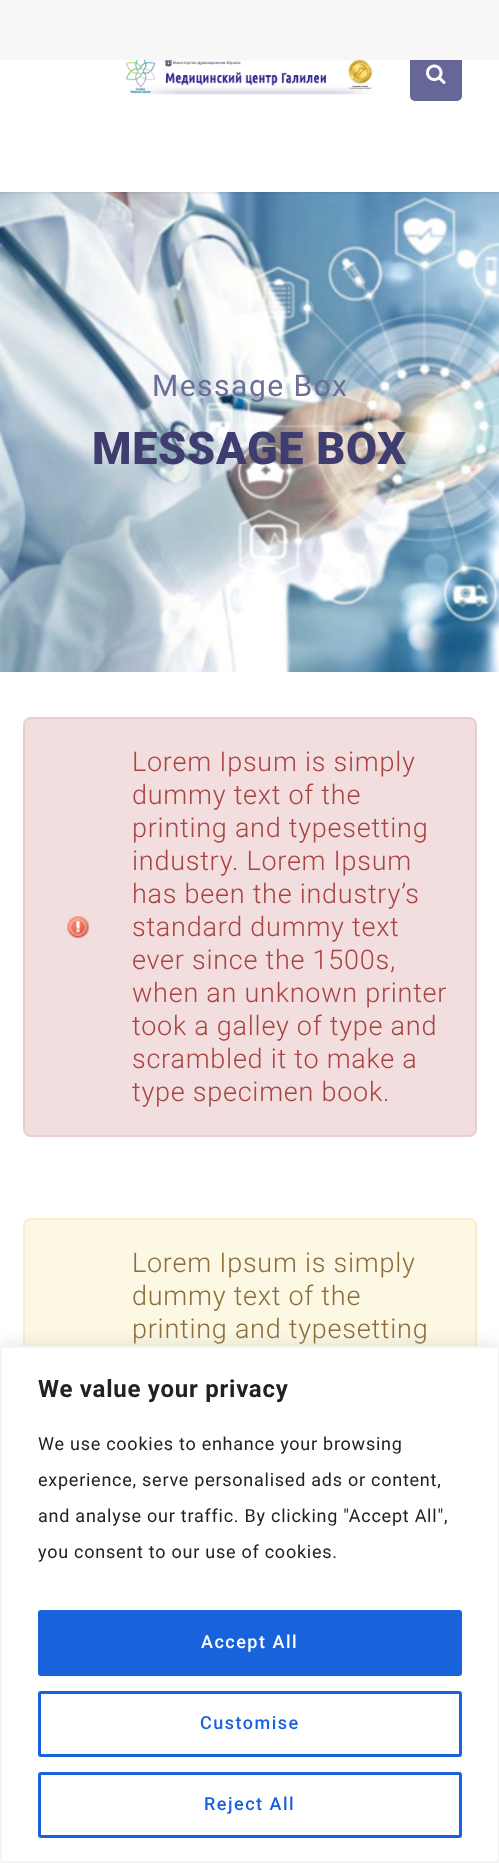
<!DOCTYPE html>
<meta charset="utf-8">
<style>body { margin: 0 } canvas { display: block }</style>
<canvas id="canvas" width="499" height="1863"></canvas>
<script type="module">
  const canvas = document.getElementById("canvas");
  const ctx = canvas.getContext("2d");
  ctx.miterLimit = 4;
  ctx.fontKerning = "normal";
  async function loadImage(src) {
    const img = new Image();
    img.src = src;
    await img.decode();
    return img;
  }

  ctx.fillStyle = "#ffffff";
  ctx.fillRect(0, 0, 499, 1863);
  ctx.drawImage(await loadImage("img3.png"), 0, 192, 499, 480);
  ctx.save();
  ctx.beginPath();
  ctx.rect(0, 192, 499, 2);
  ctx.clip();
  ctx.fillStyle = "rgba(0, 0, 0, 0.06)";
  ctx.filter = "blur(1px)";
  ctx.beginPath();
  ctx.rect(0, -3, 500, 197);
  ctx.fill();
  ctx.filter = "none";
  ctx.restore();
  ctx.fillStyle = "#666699";
  ctx.beginPath();
  ctx.roundRect(410, 48, 52, 53, 5);
  ctx.fill();
  ctx.fillStyle = "#f7f7f7";
  ctx.fillRect(0, 0, 499, 60);
  ctx.drawImage(await loadImage("img1.png"), 125, 60, 248, 35);
  ctx.drawImage(await loadImage("img2.png"), 426, 64, 20, 20);
  ctx.letterSpacing = "1.5px";
  ctx.font = "30px Roboto";
  ctx.fillStyle = "#6c6e93";
  ctx.fillText("Message Box", 152, 396);
  ctx.letterSpacing = "0.75px";
  ctx.font = "900 45px Roboto";
  ctx.fillStyle = "#3f3d6f";
  ctx.fillText("MESSAGE BOX", 92, 464);
  ctx.fillStyle = "#f2dede";
  ctx.beginPath();
  ctx.roundRect(24, 718, 452, 418, 7);
  ctx.fill();
  ctx.strokeStyle = "#ebccd1";
  ctx.lineWidth = 2;
  ctx.stroke();
  ctx.drawImage(await loadImage("img4.png"), 67, 916, 22, 22);
  ctx.font = "300 27px Roboto";
  ctx.fillStyle = "#a94442";
  ctx.fillText("Lorem Ipsum is simply", 132, 771);
  ctx.fillText("dummy text of the", 132, 804);
  ctx.fillText("printing and typesetting", 132, 837);
  ctx.fillText("industry. Lorem Ipsum", 132, 870);
  ctx.fillText("has been the industry’s", 132, 903);
  ctx.fillText("standard dummy text", 132, 936);
  ctx.fillText("ever since the 1500s,", 132, 969);
  ctx.fillText("when an unknown printer", 132, 1002);
  ctx.fillText("took a galley of type and", 132, 1035);
  ctx.fillText("scrambled it to make a", 132, 1068);
  ctx.fillText("type specimen book.", 132, 1101);
  ctx.fillStyle = "#fcf8e3";
  ctx.beginPath();
  ctx.roundRect(24, 1219, 452, 418, 7);
  ctx.fill();
  ctx.strokeStyle = "#faebcc";
  ctx.stroke();
  ctx.fillStyle = "#8a6d3b";
  ctx.fillText("Lorem Ipsum is simply", 132, 1272);
  ctx.fillText("dummy text of the", 132, 1305);
  ctx.fillText("printing and typesetting", 132, 1338);
  ctx.fillStyle = "rgba(172, 171, 171, 0.3)";
  ctx.filter = "blur(7.5px)";
  ctx.beginPath();
  ctx.rect(0, 1344, 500, 518);
  ctx.fill();
  ctx.filter = "none";
  ctx.fillStyle = "#ffffff";
  ctx.beginPath();
  ctx.rect(1, 1347, 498, 515);
  ctx.fill();
  ctx.strokeStyle = "#f4f4f4";
  ctx.stroke();
  ctx.font = "bold 24px Roboto";
  ctx.fillStyle = "#212121";
  ctx.fillText("We value your privacy", 38, 1397);
  ctx.font = "18px Roboto";
  ctx.fillText("We use cookies to enhance your browsing", 38, 1450);
  ctx.fillText("experience, serve personalised ads or content,", 38, 1486);
  ctx.fillText("and analyse our traffic. By clicking \"Accept All\",", 38, 1522);
  ctx.fillText("you consent to our use of cookies.", 38, 1558);
  ctx.fillStyle = "#1863dc";
  ctx.beginPath();
  ctx.roundRect(39.5, 1611.5, 421, 63, 1.5);
  ctx.fill();
  ctx.strokeStyle = "#1863dc";
  ctx.lineWidth = 3;
  ctx.stroke();
  ctx.letterSpacing = "1.5px";
  ctx.font = "500 18px Roboto";
  ctx.fillStyle = "#ffffff";
  ctx.fillText("Accept All", 201, 1648);
  ctx.beginPath();
  ctx.roundRect(39.5, 1692.5, 421, 63, 1.5);
  ctx.stroke();
  ctx.fillStyle = "#1863dc";
  ctx.fillText("Customise", 200, 1729);
  ctx.beginPath();
  ctx.roundRect(39.5, 1773.5, 421, 63, 1.5);
  ctx.stroke();
  ctx.fillText("Reject All", 204, 1810);
</script>
